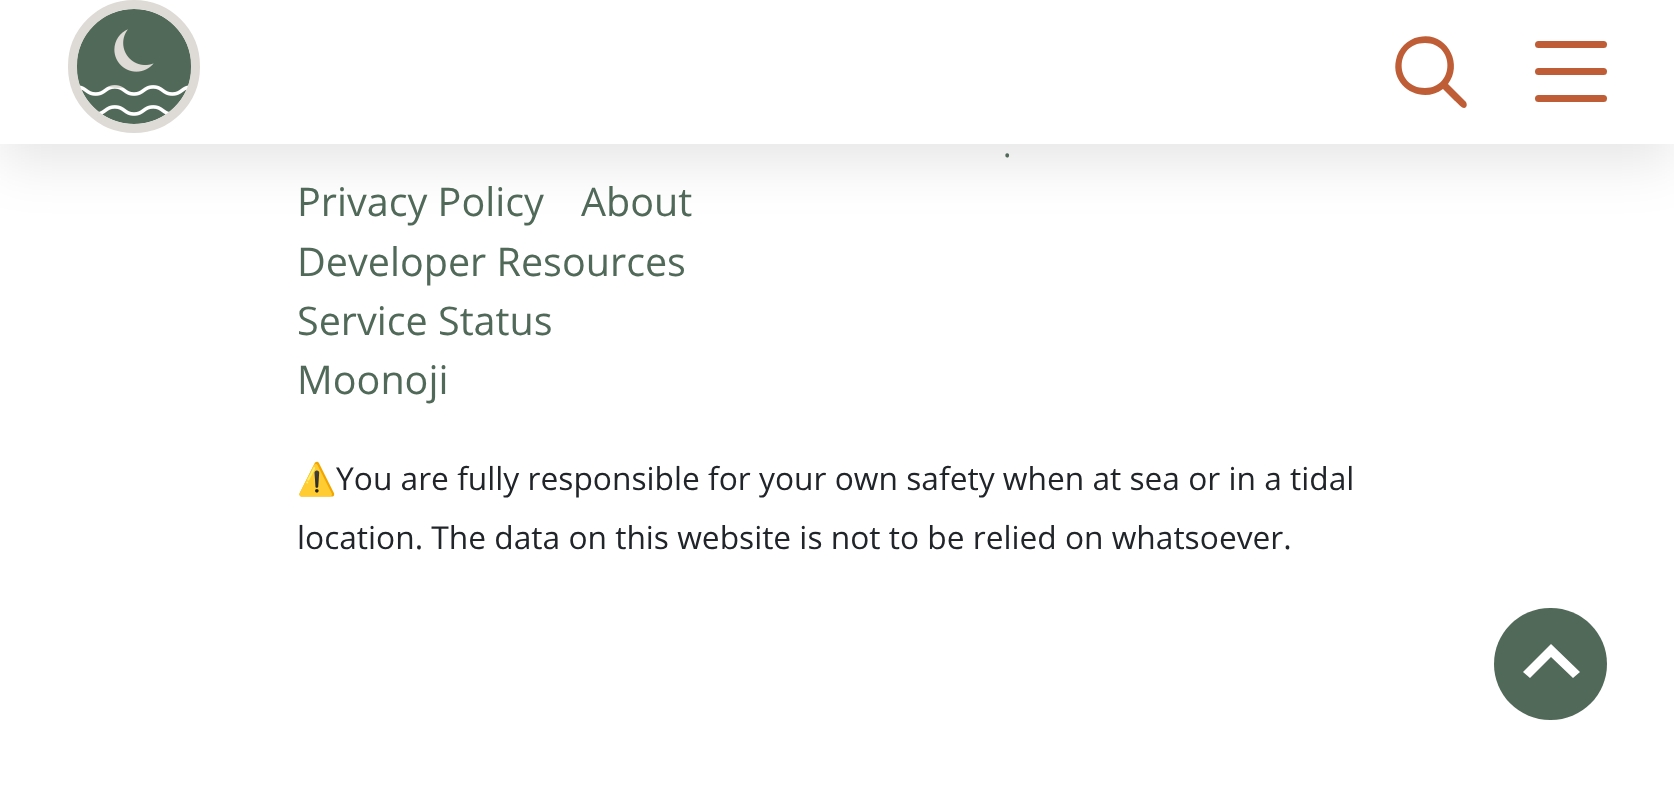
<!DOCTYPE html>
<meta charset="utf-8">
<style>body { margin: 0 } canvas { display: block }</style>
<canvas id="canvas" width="1674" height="786"></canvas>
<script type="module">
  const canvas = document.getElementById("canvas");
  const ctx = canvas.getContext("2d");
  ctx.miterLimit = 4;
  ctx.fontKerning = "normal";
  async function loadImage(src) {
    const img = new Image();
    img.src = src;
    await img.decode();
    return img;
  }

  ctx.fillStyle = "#ffffff";
  ctx.fillRect(0, 0, 1674, 786);
  ctx.fillStyle = "rgba(0, 0, 0, 0.1)";
  ctx.filter = "blur(27px)";
  ctx.beginPath();
  ctx.rect(0, 18, 1674, 144);
  ctx.fill();
  ctx.filter = "none";
  ctx.fillStyle = "#ffffff";
  ctx.fillRect(0, 0, 1674, 144);
  ctx.drawImage(await loadImage("img1.png"), 77, 9, 114, 115);
  ctx.beginPath();
  ctx.roundRect(72.5, 4.5, 123, 124, 61.5);
  ctx.strokeStyle = "#dedbd6";
  ctx.lineWidth = 9;
  ctx.stroke();
  ctx.fillStyle = "#bf5e36";
  ctx.beginPath();
  ctx.moveTo(1466, 102);
  ctx.lineTo(1448, 84);
  ctx.bezierCurveTo(1464, 63, 1446, 31, 1419, 37);
  ctx.bezierCurveTo(1413, 38, 1408, 41, 1404, 45);
  ctx.bezierCurveTo(1400, 49, 1397, 54, 1396, 60);
  ctx.bezierCurveTo(1390, 87, 1422, 105, 1443, 89);
  ctx.lineTo(1455, 101);
  ctx.bezierCurveTo(1457, 102, 1463, 111, 1466, 107);
  ctx.bezierCurveTo(1467, 106, 1467, 104, 1466, 102);
  ctx.closePath();
  ctx.moveTo(1425, 88);
  ctx.bezierCurveTo(1394, 88, 1394, 43, 1425, 43);
  ctx.bezierCurveTo(1455, 43, 1455, 88, 1425, 88);
  ctx.closePath();
  ctx.fill();
  ctx.beginPath();
  ctx.roundRect(1535, 41, 72, 7, 3.5);
  ctx.fill();
  ctx.beginPath();
  ctx.roundRect(1535, 68, 72, 7, 3.5);
  ctx.fill();
  ctx.beginPath();
  ctx.roundRect(1535, 95, 72, 7, 3.5);
  ctx.fill();
  ctx.font = "31.7px Open Sans";
  ctx.fillStyle = "#516958";
  ctx.fillText(".", 1003, 157);
  ctx.font = "39.5px Open Sans";
  ctx.fillText("Privacy Policy", 297, 216);
  ctx.fillText("About", 581, 216);
  ctx.fillText("Developer Resources", 297, 276);
  ctx.fillText("Service Status", 297, 335);
  ctx.fillText("Moonoji", 297, 394);
  ctx.font = "31.7px Noto Color Emoji";
  ctx.fillStyle = "#212529";
  ctx.fillText("⚠️", 297, 490);
  ctx.font = "31.7px Open Sans";
  ctx.fillText("You are fully responsible for your own safety when at sea or in a tidal", 336, 490);
  ctx.fillText("location. The data on this website is not to be relied on whatsoever.", 297, 549);
  ctx.fillStyle = "#516958";
  ctx.beginPath();
  ctx.roundRect(1494, 608, 113, 112, 56);
  ctx.fill();
  ctx.fillStyle = "#ffffff";
  ctx.beginPath();
  ctx.moveTo(1551, 644);
  ctx.lineTo(1580, 672);
  ctx.lineTo(1573, 678);
  ctx.lineTo(1551, 657);
  ctx.lineTo(1530, 678);
  ctx.lineTo(1523, 672);
  ctx.closePath();
  ctx.fill("evenodd");
</script>
